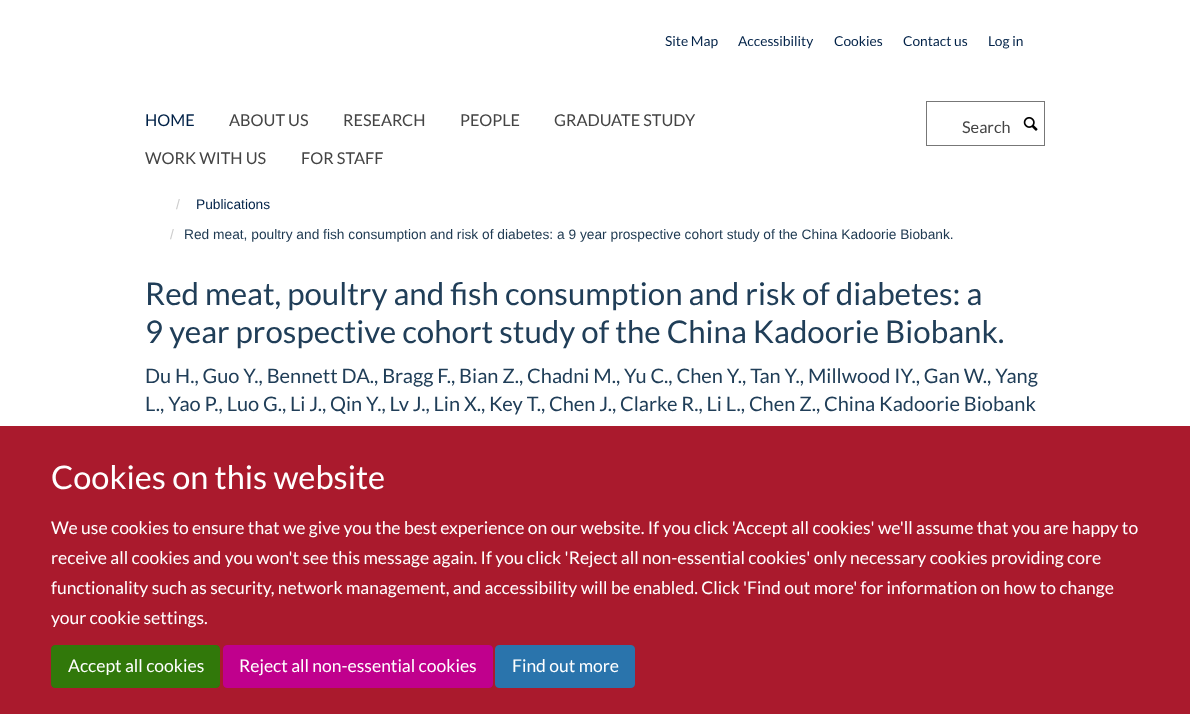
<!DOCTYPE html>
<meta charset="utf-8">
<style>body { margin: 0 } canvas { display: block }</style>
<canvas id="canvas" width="1190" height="714"></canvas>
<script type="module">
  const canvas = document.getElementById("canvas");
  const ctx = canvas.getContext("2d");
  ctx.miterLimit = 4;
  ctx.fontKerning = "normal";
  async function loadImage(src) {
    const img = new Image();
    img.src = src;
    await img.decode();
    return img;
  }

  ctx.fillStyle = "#ffffff";
  ctx.fillRect(0, 0, 1190, 714);
  ctx.font = "13.75px Lato";
  ctx.fillStyle = "#002147";
  ctx.fillText("Site Map", 665, 46);
  ctx.fillText("Accessibility", 738, 46);
  ctx.fillText("Cookies", 834, 46);
  ctx.fillText("Contact us", 903, 46);
  ctx.fillText("Log in", 988, 46);
  ctx.font = "16.25px Lato";
  ctx.fillText("HOME", 145, 126);
  ctx.fillStyle = "#444444";
  ctx.fillText("ABOUT US", 229, 126);
  ctx.fillText("RESEARCH", 343, 126);
  ctx.fillText("PEOPLE", 460, 126);
  ctx.fillText("GRADUATE STUDY", 554, 126);
  ctx.fillText("WORK WITH US", 145, 164);
  ctx.fillText("FOR STAFF", 301, 164);
  ctx.strokeStyle = "#777777";
  ctx.strokeRect(926.5, 101.5, 118, 44);
  ctx.fillText("Search", 962, 133);
  ctx.drawImage(await loadImage("img1.png"), 1023, 116, 15, 15);
  ctx.font = "13.75px Liberation Sans";
  ctx.fillStyle = "#cccccc";
  ctx.fillText("/", 176, 209);
  ctx.fillStyle = "#002147";
  ctx.fillText("Publications", 196, 209);
  ctx.fillStyle = "#cccccc";
  ctx.fillText("/", 170, 239);
  ctx.fillStyle = "#1d3850";
  ctx.fillText("Red meat, poultry and fish consumption and risk of diabetes: a 9 year prospective cohort study of the China Kadoorie Biobank.", 184, 239);
  ctx.font = "31.25px Lato";
  ctx.fillStyle = "#203e58";
  ctx.fillText("Red meat, poultry and fish consumption and risk of diabetes: a", 145, 305);
  ctx.fillText("9 year prospective cohort study of the China Kadoorie Biobank.", 145, 343);
  ctx.font = "20px Lato";
  ctx.fillText("Du H., Guo Y., Bennett DA., Bragg F., Bian Z., Chadni M., Yu C., Chen Y., Tan Y., Millwood IY., Gan W., Yang", 145, 383);
  ctx.fillText("L., Yao P., Luo G., Li J., Qin Y., Lv J., Lin X., Key T., Chen J., Clarke R., Li L., Chen Z., China Kadoorie Biobank", 145, 411);
  ctx.fillStyle = "#aa1a2d";
  ctx.fillRect(0, 426, 1190, 288);
  ctx.font = "32.5px Lato";
  ctx.fillStyle = "#ffffff";
  ctx.fillText("Cookies on this website", 51, 489);
  ctx.font = "17.5px Lato";
  ctx.fillText("We use cookies to ensure that we give you the best experience on our website. If you click 'Accept all cookies' we'll assume that you are happy to", 51, 534);
  ctx.fillText("receive all cookies and you won't see this message again. If you click 'Reject all non-essential cookies' only necessary cookies providing core", 51, 564);
  ctx.fillText("functionality such as security, network management, and accessibility will be enabled. Click 'Find out more' for information on how to change", 51, 594);
  ctx.fillText("your cookie settings.", 51, 624);
  ctx.fillStyle = "#31780a";
  ctx.beginPath();
  ctx.roundRect(51.5, 645.5, 168, 42, 3.5);
  ctx.fill();
  ctx.strokeStyle = "#31780a";
  ctx.stroke();
  ctx.fillStyle = "#ffffff";
  ctx.fillText("Accept all cookies", 68, 672);
  ctx.fillStyle = "#c0008d";
  ctx.beginPath();
  ctx.roundRect(223.5, 645.5, 269, 42, 3.5);
  ctx.fill();
  ctx.strokeStyle = "#c0008d";
  ctx.stroke();
  ctx.fillStyle = "#ffffff";
  ctx.fillText("Reject all non-essential cookies", 239, 672);
  ctx.fillStyle = "#2a74ac";
  ctx.beginPath();
  ctx.roundRect(495.5, 645.5, 139, 42, 3.5);
  ctx.fill();
  ctx.strokeStyle = "#2a74ac";
  ctx.stroke();
  ctx.fillStyle = "#ffffff";
  ctx.fillText("Find out more", 512, 672);
</script>
